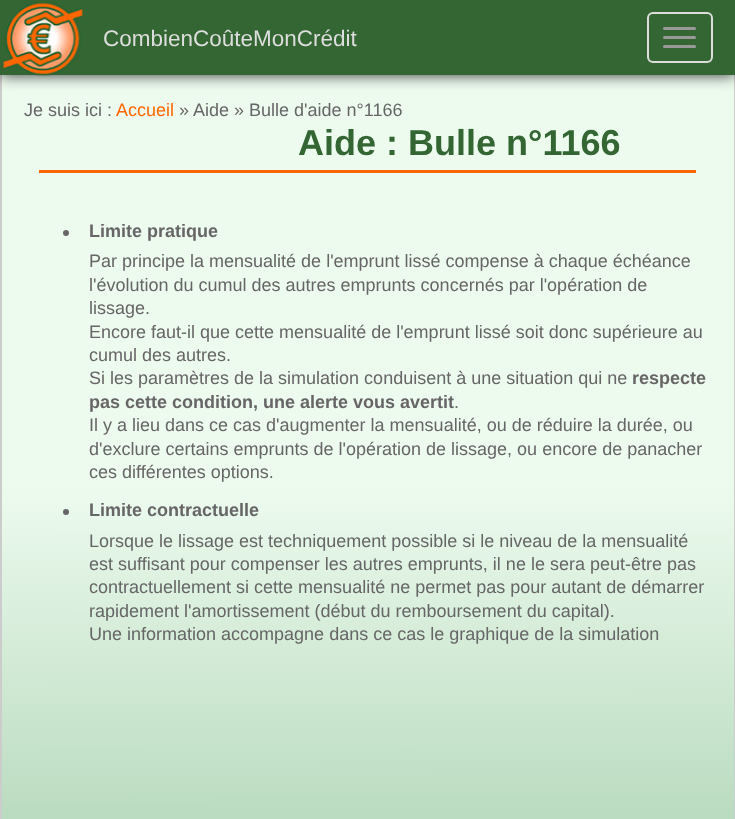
<!DOCTYPE html>
<meta charset="utf-8">
<style>body { margin: 0 } canvas { display: block }</style>
<canvas id="canvas" width="735" height="819"></canvas>
<script type="module">
  const canvas = document.getElementById("canvas");
  const ctx = canvas.getContext("2d");
  ctx.miterLimit = 4;
  ctx.fontKerning = "normal";
  async function loadImage(src) {
    const img = new Image();
    img.src = src;
    await img.decode();
    return img;
  }
  let gradient;

  ctx.fillStyle = "#ffffff";
  ctx.fillRect(0, 0, 735, 819);
  gradient = ctx.createLinearGradient(367, 75, 368, 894);
  gradient.addColorStop(0.5, "#edfbef");
  gradient.addColorStop(1, "#afd4b5");
  ctx.fillStyle = gradient;
  ctx.fillRect(2, 75, 732, 744);
  ctx.fillStyle = "#cccccc";
  ctx.fillRect(734, 75, 1, 744);
  ctx.fillRect(0, 75, 2, 744);
  ctx.fillStyle = "rgba(0, 0, 0, 0.8)";
  ctx.filter = "blur(7.5px)";
  ctx.beginPath();
  ctx.rect(0, 0, 735, 75);
  ctx.fill();
  ctx.filter = "none";
  ctx.fillStyle = "#336633";
  ctx.fillRect(0, 0, 735, 75);
  ctx.drawImage(await loadImage("img1.png"), 2, 2, 81, 74);
  ctx.font = "22.5px Liberation Sans";
  ctx.fillStyle = "#dddddd";
  ctx.fillText("CombienCoûteMonCrédit", 103, 46);
  ctx.beginPath();
  ctx.roundRect(648, 13, 64, 49, 5);
  ctx.strokeStyle = "#dddddd";
  ctx.lineWidth = 2;
  ctx.stroke();
  ctx.fillStyle = "#999999";
  ctx.beginPath();
  ctx.roundRect(663, 27, 33, 3, 1.5);
  ctx.fill();
  ctx.beginPath();
  ctx.roundRect(663, 36, 33, 3, 1.5);
  ctx.fill();
  ctx.beginPath();
  ctx.roundRect(663, 45, 33, 3, 1.5);
  ctx.fill();
  ctx.font = "18px Liberation Sans";
  ctx.fillStyle = "#666666";
  ctx.fillText("Je suis ici :", 24, 116);
  ctx.fillStyle = "#ff6600";
  ctx.fillText("Accueil", 116, 116);
  ctx.fillStyle = "#666666";
  ctx.fillText("» Aide » Bulle d'aide n°1166", 179, 116);
  ctx.fillStyle = "#ff6600";
  ctx.fillRect(39, 170, 657, 3);
  ctx.font = "bold 36px Liberation Sans";
  ctx.fillStyle = "#336633";
  ctx.fillText("Aide : Bulle n°1166", 298, 155);
  ctx.fillStyle = "#666666";
  ctx.beginPath();
  ctx.arc(66, 233, 3, 0, Math.PI * 2);
  ctx.fill();
  ctx.font = "bold 18px Liberation Sans";
  ctx.fillText("Limite pratique", 89, 237);
  ctx.font = "18px Liberation Sans";
  ctx.fillText("Par principe la mensualité de l'emprunt lissé compense à chaque échéance", 89, 267);
  ctx.fillText("l'évolution du cumul des autres emprunts concernés par l'opération de", 89, 291);
  ctx.fillText("lissage.", 89, 314);
  ctx.fillText("Encore faut-il que cette mensualité de l'emprunt lissé soit donc supérieure au", 89, 338);
  ctx.fillText("cumul des autres.", 89, 361);
  ctx.fillText("Si les paramètres de la simulation conduisent à une situation qui ne", 89, 384);
  ctx.font = "bold 18px Liberation Sans";
  ctx.fillText("respecte", 632, 384);
  ctx.fillText("pas cette condition, une alerte vous avertit", 89, 408);
  ctx.font = "18px Liberation Sans";
  ctx.fillText(".", 454, 408);
  ctx.fillText("Il y a lieu dans ce cas d'augmenter la mensualité, ou de réduire la durée, ou", 89, 431);
  ctx.fillText("d'exclure certains emprunts de l'opération de lissage, ou encore de panacher", 89, 455);
  ctx.fillText("ces différentes options.", 89, 478);
  ctx.beginPath();
  ctx.arc(66, 512, 3, 0, Math.PI * 2);
  ctx.fill();
  ctx.font = "bold 18px Liberation Sans";
  ctx.fillText("Limite contractuelle", 89, 516);
  ctx.font = "18px Liberation Sans";
  ctx.fillText("Lorsque le lissage est techniquement possible si le niveau de la mensualité", 89, 547);
  ctx.fillText("est suffisant pour compenser les autres emprunts, il ne le sera peut-être pas", 89, 570);
  ctx.fillText("contractuellement si cette mensualité ne permet pas pour autant de démarrer", 89, 593);
  ctx.fillText("rapidement l'amortissement (début du remboursement du capital).", 89, 617);
  ctx.fillText("Une information accompagne dans ce cas le graphique de la simulation", 89, 640);
</script>
